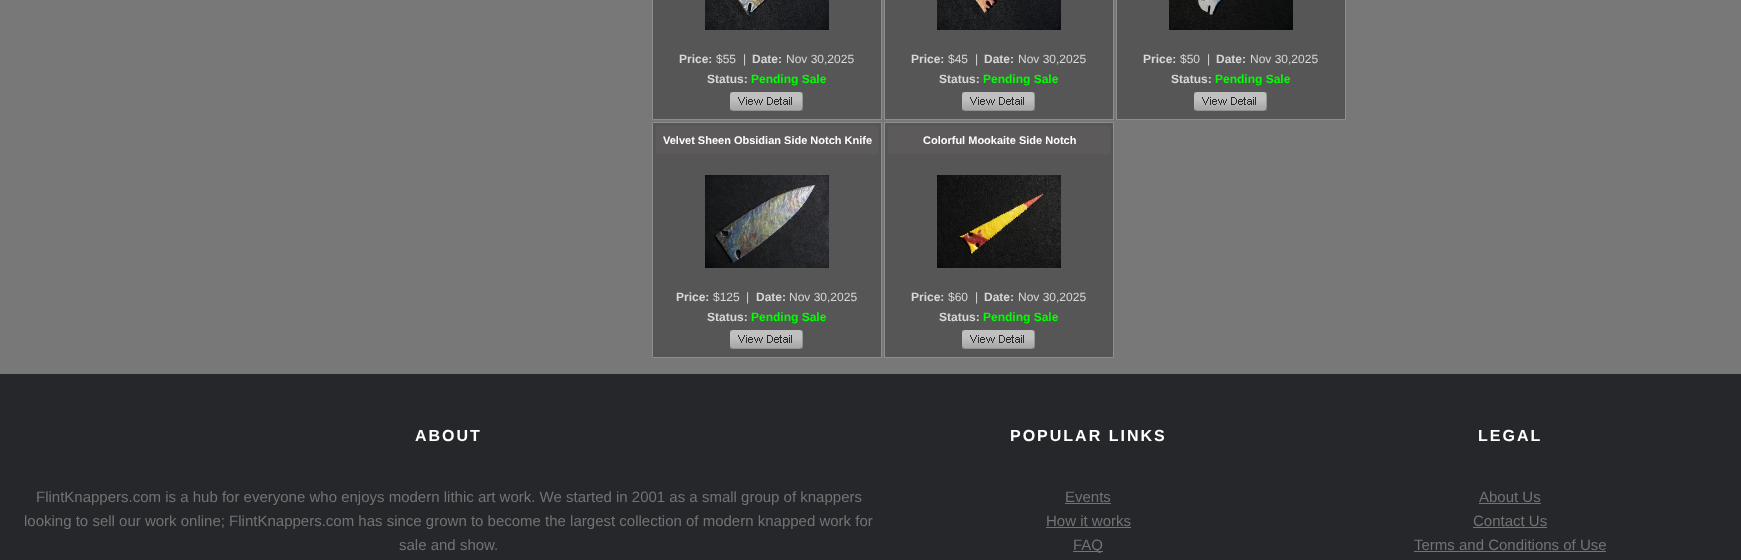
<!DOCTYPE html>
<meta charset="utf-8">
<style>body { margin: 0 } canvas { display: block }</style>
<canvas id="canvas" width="1741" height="560"></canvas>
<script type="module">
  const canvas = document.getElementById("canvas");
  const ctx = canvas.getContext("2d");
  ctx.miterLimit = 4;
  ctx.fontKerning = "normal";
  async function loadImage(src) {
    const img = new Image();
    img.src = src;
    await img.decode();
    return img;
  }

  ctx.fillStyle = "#787878";
  ctx.fillRect(0, 0, 1741, 560);
  ctx.fillStyle = "#565656";
  ctx.beginPath();
  ctx.rect(652.5, -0.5, 229, 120);
  ctx.fill();
  ctx.strokeStyle = "#8e8e8e";
  ctx.stroke();
  ctx.drawImage(await loadImage("img1.png"), 705, 0, 124, 30);
  ctx.font = "bold 12px Liberation Sans";
  ctx.fillStyle = "#d7d7d7";
  ctx.fillText("Price:", 679, 63);
  ctx.font = "12px Liberation Sans";
  ctx.fillText("$55", 716, 63);
  ctx.fillText("|", 743, 63);
  ctx.font = "bold 12px Liberation Sans";
  ctx.fillText("Date:", 752, 63);
  ctx.font = "12px Liberation Sans";
  ctx.fillText("Nov 30,2025", 786, 63);
  ctx.font = "bold 12px Liberation Sans";
  ctx.fillText("Status:", 707, 83);
  ctx.fillStyle = "#00ff00";
  ctx.fillText("Pending Sale", 751, 83);
  ctx.drawImage(await loadImage("img2.png"), 730, 92, 73, 19);
  ctx.fillStyle = "#565656";
  ctx.beginPath();
  ctx.rect(884.5, -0.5, 229, 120);
  ctx.fill();
  ctx.stroke();
  ctx.drawImage(await loadImage("img3.png"), 937, 0, 124, 30);
  ctx.fillStyle = "#d7d7d7";
  ctx.fillText("Price:", 911, 63);
  ctx.font = "12px Liberation Sans";
  ctx.fillText("$45", 948, 63);
  ctx.fillText("|", 975, 63);
  ctx.font = "bold 12px Liberation Sans";
  ctx.fillText("Date:", 984, 63);
  ctx.font = "12px Liberation Sans";
  ctx.fillText("Nov 30,2025", 1018, 63);
  ctx.font = "bold 12px Liberation Sans";
  ctx.fillText("Status:", 939, 83);
  ctx.fillStyle = "#00ff00";
  ctx.fillText("Pending Sale", 983, 83);
  ctx.drawImage(await loadImage("img2.png"), 962, 92, 73, 19);
  ctx.fillStyle = "#565656";
  ctx.beginPath();
  ctx.rect(1116.5, -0.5, 229, 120);
  ctx.fill();
  ctx.stroke();
  ctx.drawImage(await loadImage("img4.png"), 1169, 0, 124, 30);
  ctx.fillStyle = "#d7d7d7";
  ctx.fillText("Price:", 1143, 63);
  ctx.font = "12px Liberation Sans";
  ctx.fillText("$50", 1180, 63);
  ctx.fillText("|", 1207, 63);
  ctx.font = "bold 12px Liberation Sans";
  ctx.fillText("Date:", 1216, 63);
  ctx.font = "12px Liberation Sans";
  ctx.fillText("Nov 30,2025", 1250, 63);
  ctx.font = "bold 12px Liberation Sans";
  ctx.fillText("Status:", 1171, 83);
  ctx.fillStyle = "#00ff00";
  ctx.fillText("Pending Sale", 1215, 83);
  ctx.drawImage(await loadImage("img2.png"), 1194, 92, 73, 19);
  ctx.fillStyle = "#565656";
  ctx.beginPath();
  ctx.rect(652.5, 122.5, 229, 235);
  ctx.fill();
  ctx.stroke();
  ctx.fillStyle = "#5c5a5b";
  ctx.fillRect(656, 126, 222, 28);
  ctx.font = "bold 11px Liberation Sans";
  ctx.fillStyle = "#ffffff";
  ctx.fillText("Velvet Sheen Obsidian Side Notch Knife", 663, 144);
  ctx.drawImage(await loadImage("img5.png"), 705, 175, 124, 93);
  ctx.font = "bold 12px Liberation Sans";
  ctx.fillStyle = "#d7d7d7";
  ctx.fillText("Price:", 676, 301);
  ctx.font = "12px Liberation Sans";
  ctx.fillText("$125", 713, 301);
  ctx.fillText("|", 746, 301);
  ctx.font = "bold 12px Liberation Sans";
  ctx.fillText("Date:", 756, 301);
  ctx.font = "12px Liberation Sans";
  ctx.fillText("Nov 30,2025", 789, 301);
  ctx.font = "bold 12px Liberation Sans";
  ctx.fillText("Status:", 707, 321);
  ctx.fillStyle = "#00ff00";
  ctx.fillText("Pending Sale", 751, 321);
  ctx.drawImage(await loadImage("img2.png"), 730, 330, 73, 19);
  ctx.fillStyle = "#565656";
  ctx.beginPath();
  ctx.rect(884.5, 122.5, 229, 235);
  ctx.fill();
  ctx.stroke();
  ctx.fillStyle = "#5c5a5b";
  ctx.fillRect(888, 126, 222, 28);
  ctx.font = "bold 11px Liberation Sans";
  ctx.fillStyle = "#ffffff";
  ctx.fillText("Colorful Mookaite Side Notch", 923, 144);
  ctx.drawImage(await loadImage("img6.png"), 937, 175, 124, 93);
  ctx.font = "bold 12px Liberation Sans";
  ctx.fillStyle = "#d7d7d7";
  ctx.fillText("Price:", 911, 301);
  ctx.font = "12px Liberation Sans";
  ctx.fillText("$60", 948, 301);
  ctx.fillText("|", 975, 301);
  ctx.font = "bold 12px Liberation Sans";
  ctx.fillText("Date:", 984, 301);
  ctx.font = "12px Liberation Sans";
  ctx.fillText("Nov 30,2025", 1018, 301);
  ctx.font = "bold 12px Liberation Sans";
  ctx.fillText("Status:", 939, 321);
  ctx.fillStyle = "#00ff00";
  ctx.fillText("Pending Sale", 983, 321);
  ctx.drawImage(await loadImage("img2.png"), 962, 330, 73, 19);
  ctx.fillStyle = "#26272b";
  ctx.fillRect(0, 374, 1741, 186);
  ctx.letterSpacing = "2px";
  ctx.font = "bold 16px Liberation Sans";
  ctx.fillStyle = "#ffffff";
  ctx.fillText("ABOUT", 415, 441);
  ctx.letterSpacing = "0px";
  ctx.font = "15px Liberation Sans";
  ctx.fillStyle = "#737373";
  ctx.fillText("FlintKnappers.com is a hub for everyone who enjoys modern lithic art work. We started in 2001 as a small group of knappers", 36, 502);
  ctx.fillText("looking to sell our work online; FlintKnappers.com has since grown to become the largest collection of modern knapped work for", 24, 526);
  ctx.fillText("sale and show.", 399, 550);
  ctx.letterSpacing = "2px";
  ctx.font = "bold 16px Liberation Sans";
  ctx.fillStyle = "#ffffff";
  ctx.fillText("POPULAR LINKS", 1010, 441);
  ctx.letterSpacing = "0px";
  ctx.font = "15px Liberation Sans";
  ctx.fillStyle = "#737373";
  ctx.fillText("Events", 1065, 502);
  ctx.fillRect(1065, 503, 46, 1);
  ctx.fillText("How it works", 1046, 526);
  ctx.fillRect(1046, 527, 85, 1);
  ctx.fillRect(1073, 551, 30, 1);
  ctx.fillText("FAQ", 1073, 550);
  ctx.letterSpacing = "2px";
  ctx.font = "bold 16px Liberation Sans";
  ctx.fillStyle = "#ffffff";
  ctx.fillText("LEGAL", 1478, 441);
  ctx.letterSpacing = "0px";
  ctx.font = "15px Liberation Sans";
  ctx.fillStyle = "#737373";
  ctx.fillText("About Us", 1479, 502);
  ctx.fillRect(1479, 503, 62, 1);
  ctx.fillText("Contact Us", 1473, 526);
  ctx.fillRect(1473, 527, 74, 1);
  ctx.fillText("Terms and Conditions of Use", 1414, 550);
  ctx.fillRect(1414, 551, 192, 1);
</script>
